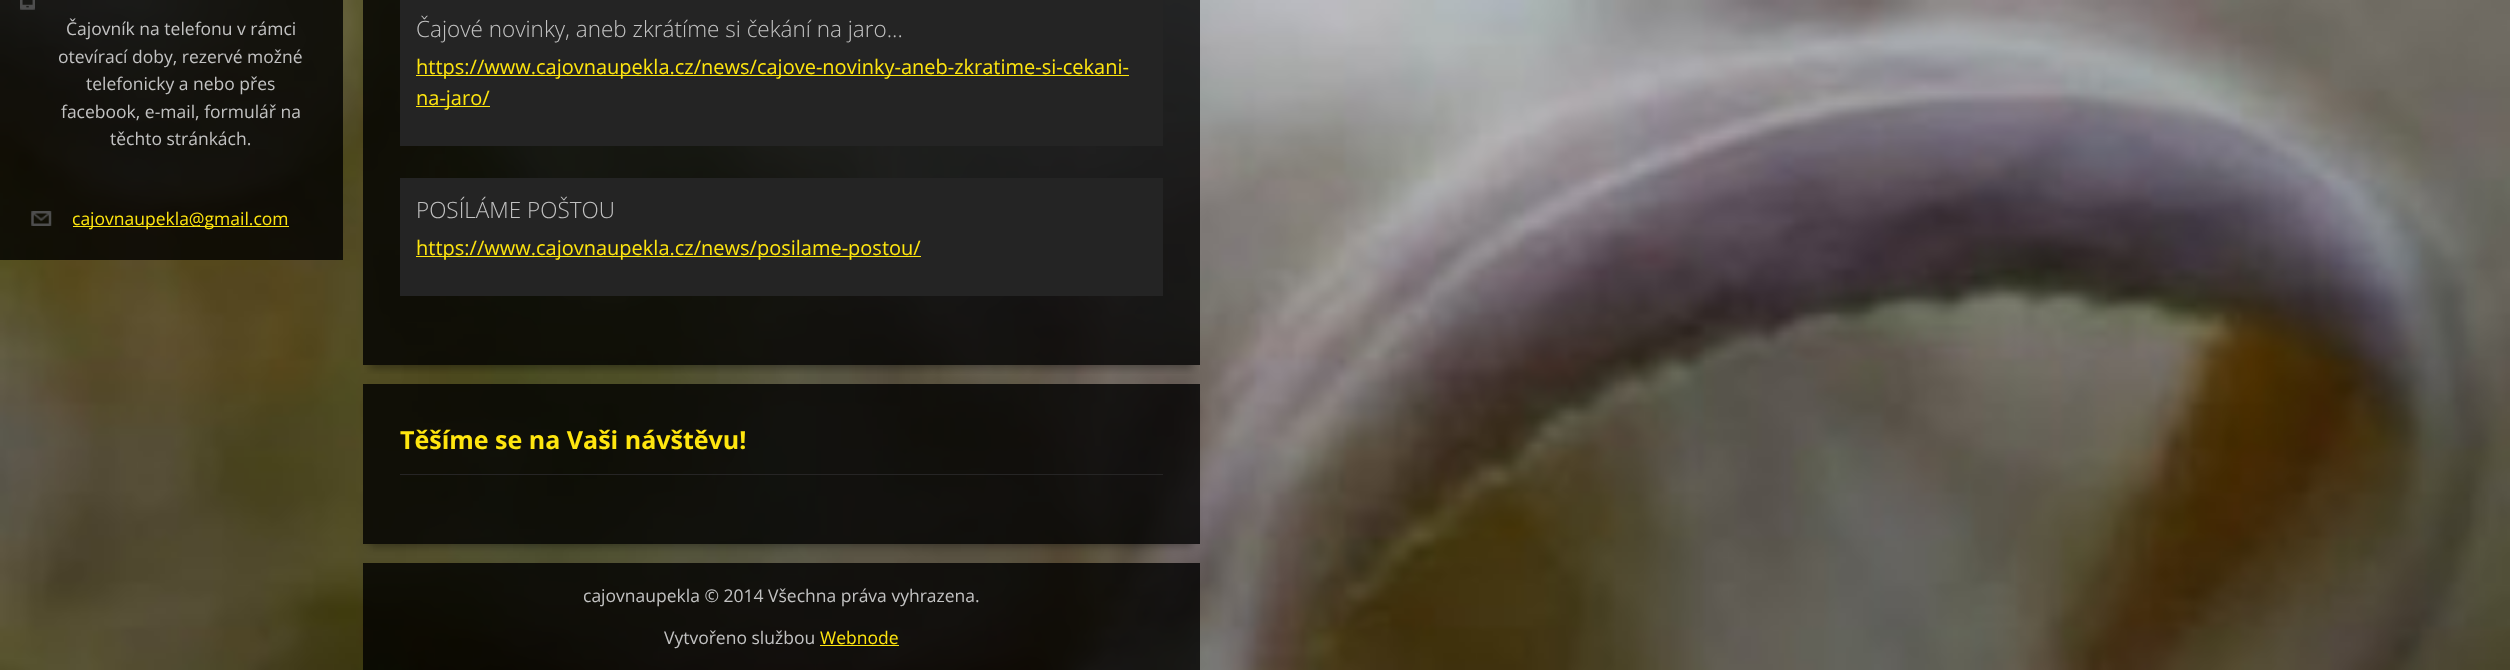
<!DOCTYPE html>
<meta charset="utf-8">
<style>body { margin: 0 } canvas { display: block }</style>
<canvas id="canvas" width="2510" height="670"></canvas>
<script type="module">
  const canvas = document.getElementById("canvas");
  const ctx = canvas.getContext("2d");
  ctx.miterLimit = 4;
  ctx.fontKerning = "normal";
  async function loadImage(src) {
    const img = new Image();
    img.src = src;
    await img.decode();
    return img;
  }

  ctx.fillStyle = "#ffffff";
  ctx.fillRect(0, 0, 2510, 670);
  ctx.drawImage(await loadImage("img1.png"), 0, 0, 2510, 670);
  ctx.fillStyle = "rgba(0, 0, 0, 0.8)";
  ctx.fillRect(0, 0, 343, 260);
  ctx.drawImage(await loadImage("img2.png"), 20, 0, 15, 10);
  ctx.font = "17.5px Open Sans";
  ctx.fillStyle = "#c2c2c2";
  ctx.fillText("Čajovník na telefonu v rámci", 66, 35);
  ctx.fillText("otevírací doby, rezervé možné", 58, 63);
  ctx.fillText("telefonicky a nebo přes", 86, 90);
  ctx.fillText("facebook, e-mail, formulář na", 61, 118);
  ctx.fillText("těchto stránkách.", 110, 145);
  ctx.drawImage(await loadImage("img3.png"), 31, 211, 21, 15);
  ctx.fillStyle = "#ffe60f";
  ctx.fillRect(73, 226, 216, 1);
  ctx.fillText("cajovnaupekla@gmail.com", 72, 225);
  ctx.save();
  ctx.beginPath();
  ctx.rect(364, 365, 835, 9);
  ctx.clip();
  ctx.fillStyle = "rgba(0, 0, 0, 0.35)";
  ctx.filter = "blur(4px)";
  ctx.beginPath();
  ctx.rect(370, -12, 823, 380);
  ctx.fill();
  ctx.filter = "none";
  ctx.restore();
  ctx.fillStyle = "rgba(0, 0, 0, 0.8)";
  ctx.fillRect(363, 0, 837, 328);
  ctx.fillStyle = "#242424";
  ctx.fillRect(400, 0, 763, 146);
  ctx.font = "300 22.5px Open Sans";
  ctx.fillStyle = "#c2c2c2";
  ctx.fillText("Čajové novinky, aneb zkrátíme si čekání na jaro...", 416, 37);
  ctx.fillStyle = "#ffe60f";
  ctx.fillRect(416, 75, 713, 1);
  ctx.font = "20px Open Sans";
  ctx.fillText("https://www.cajovnaupekla.cz/news/cajove-novinky-aneb-zkratime-si-cekani-", 416, 74);
  ctx.fillRect(416, 106, 74, 1);
  ctx.fillText("na-jaro/", 416, 105);
  ctx.fillStyle = "#242424";
  ctx.fillRect(400, 178, 763, 118);
  ctx.font = "300 22.5px Open Sans";
  ctx.fillStyle = "#c2c2c2";
  ctx.fillText("POSÍLÁME POŠTOU", 416, 218);
  ctx.fillStyle = "#ffe60f";
  ctx.fillRect(416, 256, 505, 1);
  ctx.font = "20px Open Sans";
  ctx.fillText("https://www.cajovnaupekla.cz/news/posilame-postou/", 416, 255);
  ctx.fillStyle = "rgba(0, 0, 0, 0.8)";
  ctx.fillRect(363, 328, 837, 37);
  ctx.save();
  ctx.beginPath();
  ctx.moveTo(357, 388);
  ctx.lineTo(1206, 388);
  ctx.lineTo(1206, 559);
  ctx.lineTo(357, 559);
  ctx.closePath();
  ctx.moveTo(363, 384);
  ctx.lineTo(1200, 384);
  ctx.lineTo(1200, 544);
  ctx.lineTo(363, 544);
  ctx.closePath();
  ctx.clip("evenodd");
  ctx.fillStyle = "rgba(0, 0, 0, 0.35)";
  ctx.filter = "blur(4px)";
  ctx.beginPath();
  ctx.rect(370, 401, 823, 145);
  ctx.fill();
  ctx.filter = "none";
  ctx.restore();
  ctx.fillRect(363, 384, 837, 122);
  ctx.fillStyle = "#262525";
  ctx.fillRect(400, 474, 763, 1);
  ctx.font = "bold 25px Open Sans";
  ctx.fillStyle = "#ffe60f";
  ctx.fillText("Těšíme se na Vaši návštěvu!", 400, 449);
  ctx.fillStyle = "rgba(0, 0, 0, 0.8)";
  ctx.fillRect(363, 506, 837, 38);
  ctx.fillRect(363, 563, 837, 107);
  ctx.font = "17.5px Open Sans";
  ctx.fillStyle = "#c2c2c2";
  ctx.fillText("cajovnaupekla © 2014 Všechna práva vyhrazena.", 583, 602);
  ctx.fillText("Vytvořeno službou", 664, 644);
  ctx.fillStyle = "#ffe60f";
  ctx.fillText("Webnode", 820, 644);
  ctx.fillRect(820, 645, 79, 1);
</script>
